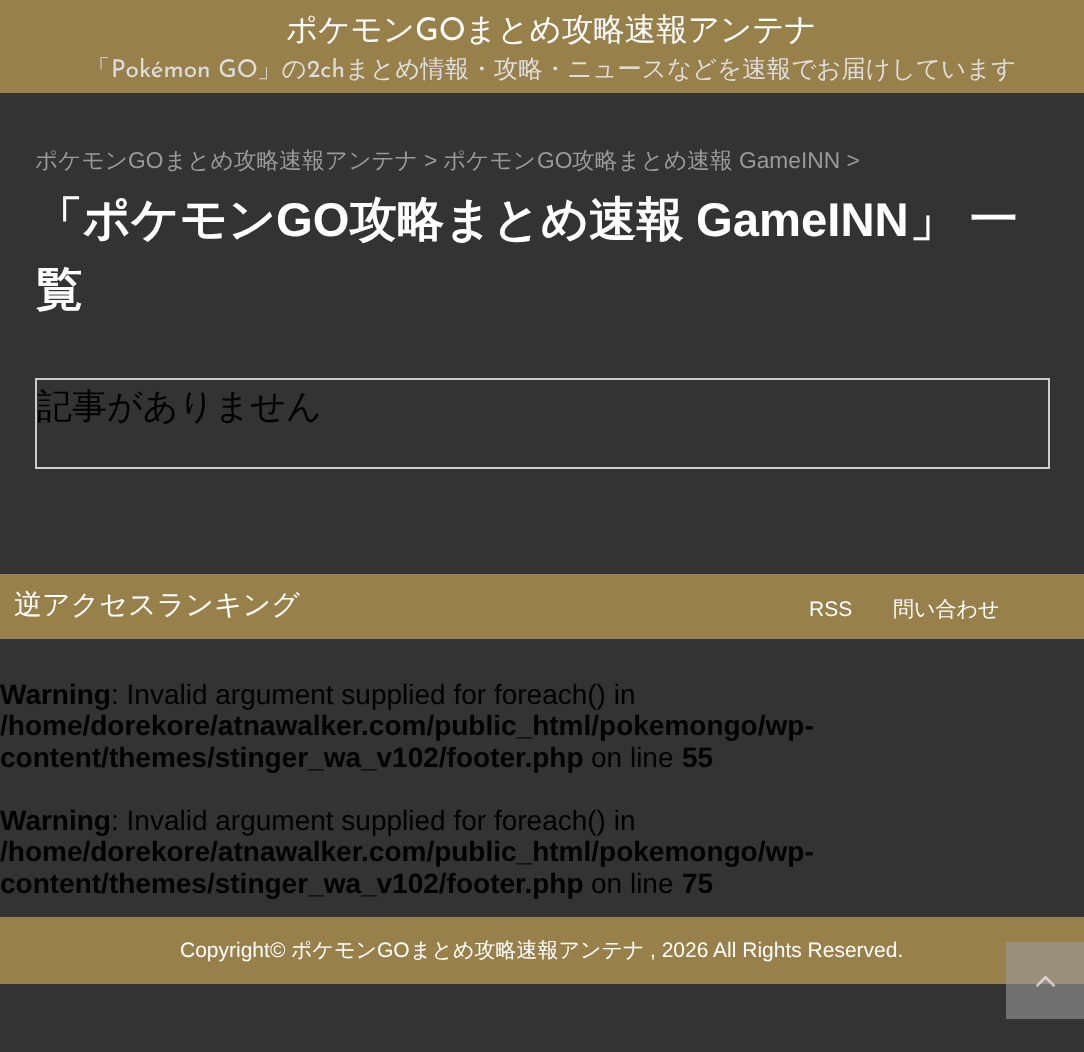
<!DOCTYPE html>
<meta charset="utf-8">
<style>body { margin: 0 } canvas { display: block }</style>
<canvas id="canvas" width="1084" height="1052"></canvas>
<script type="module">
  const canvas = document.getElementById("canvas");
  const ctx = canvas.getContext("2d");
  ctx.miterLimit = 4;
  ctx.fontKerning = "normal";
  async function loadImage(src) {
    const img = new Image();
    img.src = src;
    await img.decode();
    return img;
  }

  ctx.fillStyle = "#333333";
  ctx.fillRect(0, 0, 1084, 1052);
  ctx.fillStyle = "#707070";
  ctx.fillRect(1006, 984, 78, 35);
  ctx.fillStyle = "#98804b";
  ctx.fillRect(0, 0, 1084, 93);
  ctx.font = "500 31.5px WenQuanYi Zen Hei";
  ctx.fillStyle = "#ffffff";
  ctx.fillText("ポケモン", 286, 40);
  ctx.font = "31.5px Josefin Sans";
  ctx.fillText("GO", 415, 40);
  ctx.font = "500 31.5px WenQuanYi Zen Hei";
  ctx.fillText("まとめ攻略速報アンテナ", 465, 40);
  ctx.font = "500 24.5px WenQuanYi Zen Hei";
  ctx.fillStyle = "#dddddd";
  ctx.fillText("「", 86, 77);
  ctx.font = "24.5px Josefin Sans";
  ctx.fillText("Pokémon GO", 111, 77);
  ctx.font = "500 24.5px WenQuanYi Zen Hei";
  ctx.fillText("」の", 257, 77);
  ctx.font = "24.5px Josefin Sans";
  ctx.fillText("2ch", 307, 77);
  ctx.font = "500 24.5px WenQuanYi Zen Hei";
  ctx.fillText("まとめ情報・攻略・ニュースなどを速報でお届けしています", 345, 77);
  ctx.font = "500 22.75px WenQuanYi Zen Hei";
  ctx.fillStyle = "#999999";
  ctx.fillText("ポケモン", 35, 168);
  ctx.font = "22.75px Liberation Sans";
  ctx.fillText("GO", 128, 168);
  ctx.font = "500 22.75px WenQuanYi Zen Hei";
  ctx.fillText("まとめ攻略速報アンテナ", 164, 168);
  ctx.font = "22.75px Liberation Sans";
  ctx.fillText(">", 424, 168);
  ctx.font = "500 22.75px WenQuanYi Zen Hei";
  ctx.fillText("ポケモン", 443, 168);
  ctx.font = "22.75px Liberation Sans";
  ctx.fillText("GO", 537, 168);
  ctx.font = "500 22.75px WenQuanYi Zen Hei";
  ctx.fillText("攻略まとめ速報", 572, 168);
  ctx.font = "22.75px Liberation Sans";
  ctx.fillText("GameINN >", 739, 168);
  ctx.font = "bold 47.25px WenQuanYi Zen Hei";
  ctx.fillStyle = "#ffffff";
  ctx.fillText("「ポケモン", 35, 236);
  ctx.font = "bold 47.25px Liberation Sans";
  ctx.fillText("GO", 276, 236);
  ctx.font = "bold 47.25px WenQuanYi Zen Hei";
  ctx.fillText("攻略まとめ速報", 349, 236);
  ctx.font = "bold 47.25px Liberation Sans";
  ctx.fillText("GameINN", 696, 236);
  ctx.wordSpacing = "-1px";
  ctx.font = "bold 47.25px WenQuanYi Zen Hei";
  ctx.fillText("」 一", 909, 236);
  ctx.wordSpacing = "0px";
  ctx.fillText("覧", 35, 306);
  ctx.strokeStyle = "#cccccc";
  ctx.lineWidth = 2;
  ctx.strokeRect(36, 379, 1013, 89);
  ctx.font = "500 35px WenQuanYi Zen Hei";
  ctx.fillStyle = "#000000";
  ctx.fillText("記事がありません", 37, 418);
  ctx.fillStyle = "#98804b";
  ctx.fillRect(0, 574, 1084, 65);
  ctx.font = "500 28px WenQuanYi Zen Hei";
  ctx.fillStyle = "#ffffff";
  ctx.fillText("逆アクセスランキング", 14, 614);
  ctx.font = "21px Liberation Sans";
  ctx.fillText("RSS", 809, 616);
  ctx.font = "500 21px WenQuanYi Zen Hei";
  ctx.fillText("問い合わせ", 893, 616);
  ctx.font = "bold 28px Liberation Sans";
  ctx.fillStyle = "#000000";
  ctx.fillText("Warning", 0, 704);
  ctx.font = "28px Liberation Sans";
  ctx.fillText(": Invalid argument supplied for foreach() in", 111, 704);
  ctx.font = "bold 28px Liberation Sans";
  ctx.fillText("/home/dorekore/atnawalker.com/public_html/pokemongo/wp-", 0, 735);
  ctx.fillText("content/themes/stinger_wa_v102/footer.php", 0, 767);
  ctx.font = "28px Liberation Sans";
  ctx.fillText("on line", 591, 767);
  ctx.font = "bold 28px Liberation Sans";
  ctx.fillText("55", 682, 767);
  ctx.fillText("Warning", 0, 830);
  ctx.font = "28px Liberation Sans";
  ctx.fillText(": Invalid argument supplied for foreach() in", 111, 830);
  ctx.font = "bold 28px Liberation Sans";
  ctx.fillText("/home/dorekore/atnawalker.com/public_html/pokemongo/wp-", 0, 861);
  ctx.fillText("content/themes/stinger_wa_v102/footer.php", 0, 893);
  ctx.font = "28px Liberation Sans";
  ctx.fillText("on line", 591, 893);
  ctx.font = "bold 28px Liberation Sans";
  ctx.fillText("75", 682, 893);
  ctx.fillStyle = "#98804b";
  ctx.fillRect(0, 917, 1084, 67);
  ctx.fillStyle = "#998f7a";
  ctx.fillRect(1006, 942, 78, 42);
  ctx.font = "21px Liberation Sans";
  ctx.fillStyle = "#ffffff";
  ctx.fillText("Copyright©", 180, 957);
  ctx.font = "500 21px WenQuanYi Zen Hei";
  ctx.fillText("ポケモン", 291, 957);
  ctx.font = "21px Liberation Sans";
  ctx.fillText("GO", 377, 957);
  ctx.font = "500 21px WenQuanYi Zen Hei";
  ctx.fillText("まとめ攻略速報アンテナ", 410, 957);
  ctx.font = "21px Liberation Sans";
  ctx.fillText(", 2026 All Rights Reserved.", 650, 957);
  ctx.drawImage(await loadImage("img1.png"), 1035, 975, 21, 12);
</script>
